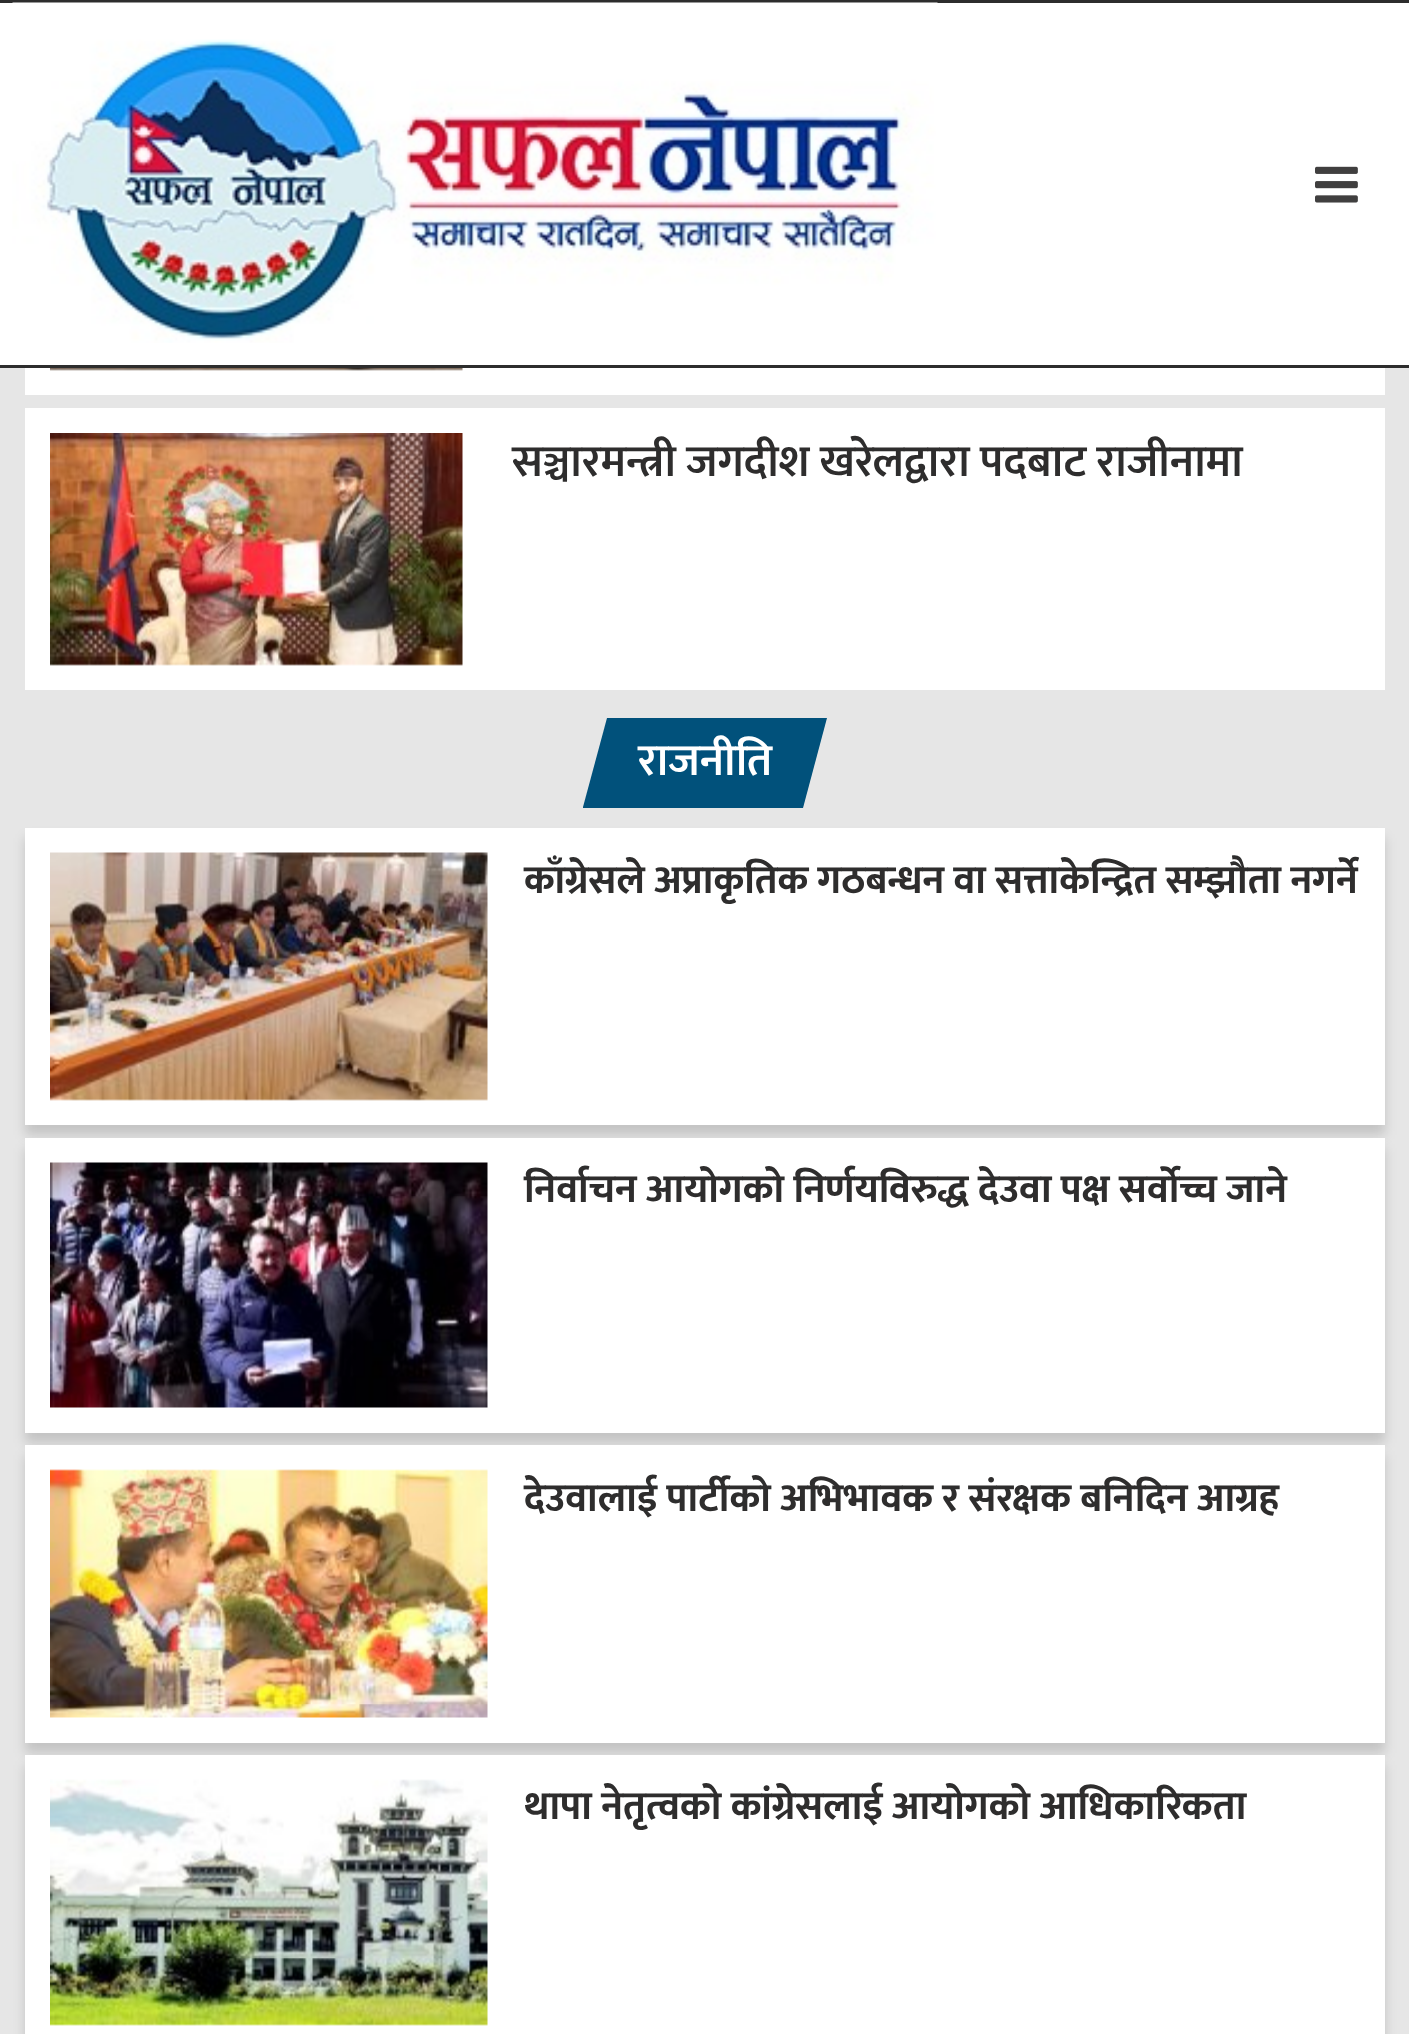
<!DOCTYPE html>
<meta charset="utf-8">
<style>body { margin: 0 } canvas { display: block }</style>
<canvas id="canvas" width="1409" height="2034"></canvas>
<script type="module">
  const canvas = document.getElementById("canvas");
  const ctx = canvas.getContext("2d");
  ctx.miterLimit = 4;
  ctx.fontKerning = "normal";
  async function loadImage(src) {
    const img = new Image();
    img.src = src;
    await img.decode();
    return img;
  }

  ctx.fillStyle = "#e6e6e6";
  ctx.fillRect(0, 0, 1409, 2034);
  ctx.fillStyle = "#ffffff";
  ctx.fillRect(0, 3, 1409, 362);
  ctx.fillStyle = "#2d2d2d";
  ctx.fillRect(0, 0, 1409, 3);
  ctx.fillRect(0, 365, 1409, 3);
  ctx.drawImage(await loadImage("img1.png"), 12, 2, 926, 341);
  ctx.drawImage(await loadImage("img2.png"), 1315, 166, 43, 37);
  ctx.fillStyle = "#ffffff";
  ctx.fillRect(25, 368, 1360, 27);
  ctx.drawImage(await loadImage("img3.png"), 50, 368, 413, 3);
  ctx.fillRect(25, 408, 1360, 282);
  ctx.drawImage(await loadImage("img4.png"), 50, 433, 413, 233);
  ctx.font = "600 45px Mukta";
  ctx.fillStyle = "#2e2d2d";
  ctx.fillText("सञ्चारमन्त्री जगदीश खरेलद्वारा पदबाट राजीनामा", 512, 476);
  ctx.fillStyle = "#01517b";
  ctx.beginPath();
  ctx.moveTo(583, 807);
  ctx.lineTo(607, 718);
  ctx.lineTo(827, 718);
  ctx.lineTo(803, 808);
  ctx.lineTo(583, 808);
  ctx.closePath();
  ctx.fill();
  ctx.fillStyle = "#ffffff";
  ctx.fillText("राजनीति", 638, 775);
  ctx.fillStyle = "rgba(0, 0, 0, 0.15)";
  ctx.filter = "blur(6px)";
  ctx.beginPath();
  ctx.rect(25, 838, 1360, 297);
  ctx.fill();
  ctx.filter = "none";
  ctx.fillStyle = "#ffffff";
  ctx.fillRect(25, 828, 1360, 297);
  ctx.drawImage(await loadImage("img5.png"), 50, 852, 438, 249);
  ctx.font = "bold 40px Mukta";
  ctx.fillStyle = "#2e2d2d";
  ctx.fillText("काँग्रेसले अप्राकृतिक गठबन्धन वा सत्ताकेन्द्रित सम्झौता नगर्ने", 524, 893);
  ctx.fillStyle = "rgba(0, 0, 0, 0.15)";
  ctx.filter = "blur(6px)";
  ctx.beginPath();
  ctx.rect(25, 1148, 1360, 295);
  ctx.fill();
  ctx.filter = "none";
  ctx.fillStyle = "#ffffff";
  ctx.fillRect(25, 1138, 1360, 295);
  ctx.drawImage(await loadImage("img6.png"), 50, 1162, 438, 246);
  ctx.fillStyle = "#2e2d2d";
  ctx.fillText("निर्वाचन आयोगको निर्णयविरुद्ध देउवा पक्ष सर्वोच्च जाने", 524, 1202);
  ctx.fillStyle = "rgba(0, 0, 0, 0.15)";
  ctx.filter = "blur(6px)";
  ctx.beginPath();
  ctx.rect(25, 1455, 1360, 298);
  ctx.fill();
  ctx.filter = "none";
  ctx.fillStyle = "#ffffff";
  ctx.fillRect(25, 1445, 1360, 298);
  ctx.drawImage(await loadImage("img7.png"), 50, 1469, 438, 249);
  ctx.fillStyle = "#2e2d2d";
  ctx.fillText("देउवालाई पार्टीको अभिभावक र संरक्षक बनिदिन आग्रह", 524, 1511);
  ctx.fillStyle = "rgba(0, 0, 0, 0.15)";
  ctx.filter = "blur(6px)";
  ctx.beginPath();
  ctx.rect(25, 1765, 1360, 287);
  ctx.fill();
  ctx.filter = "none";
  ctx.fillStyle = "#ffffff";
  ctx.fillRect(25, 1755, 1360, 279);
  ctx.drawImage(await loadImage("img8.png"), 50, 1779, 438, 247);
  ctx.fillStyle = "#2e2d2d";
  ctx.fillText("थापा नेतृत्वको कांग्रेसलाई आयोगको आधिकारिकता", 524, 1819);
</script>
